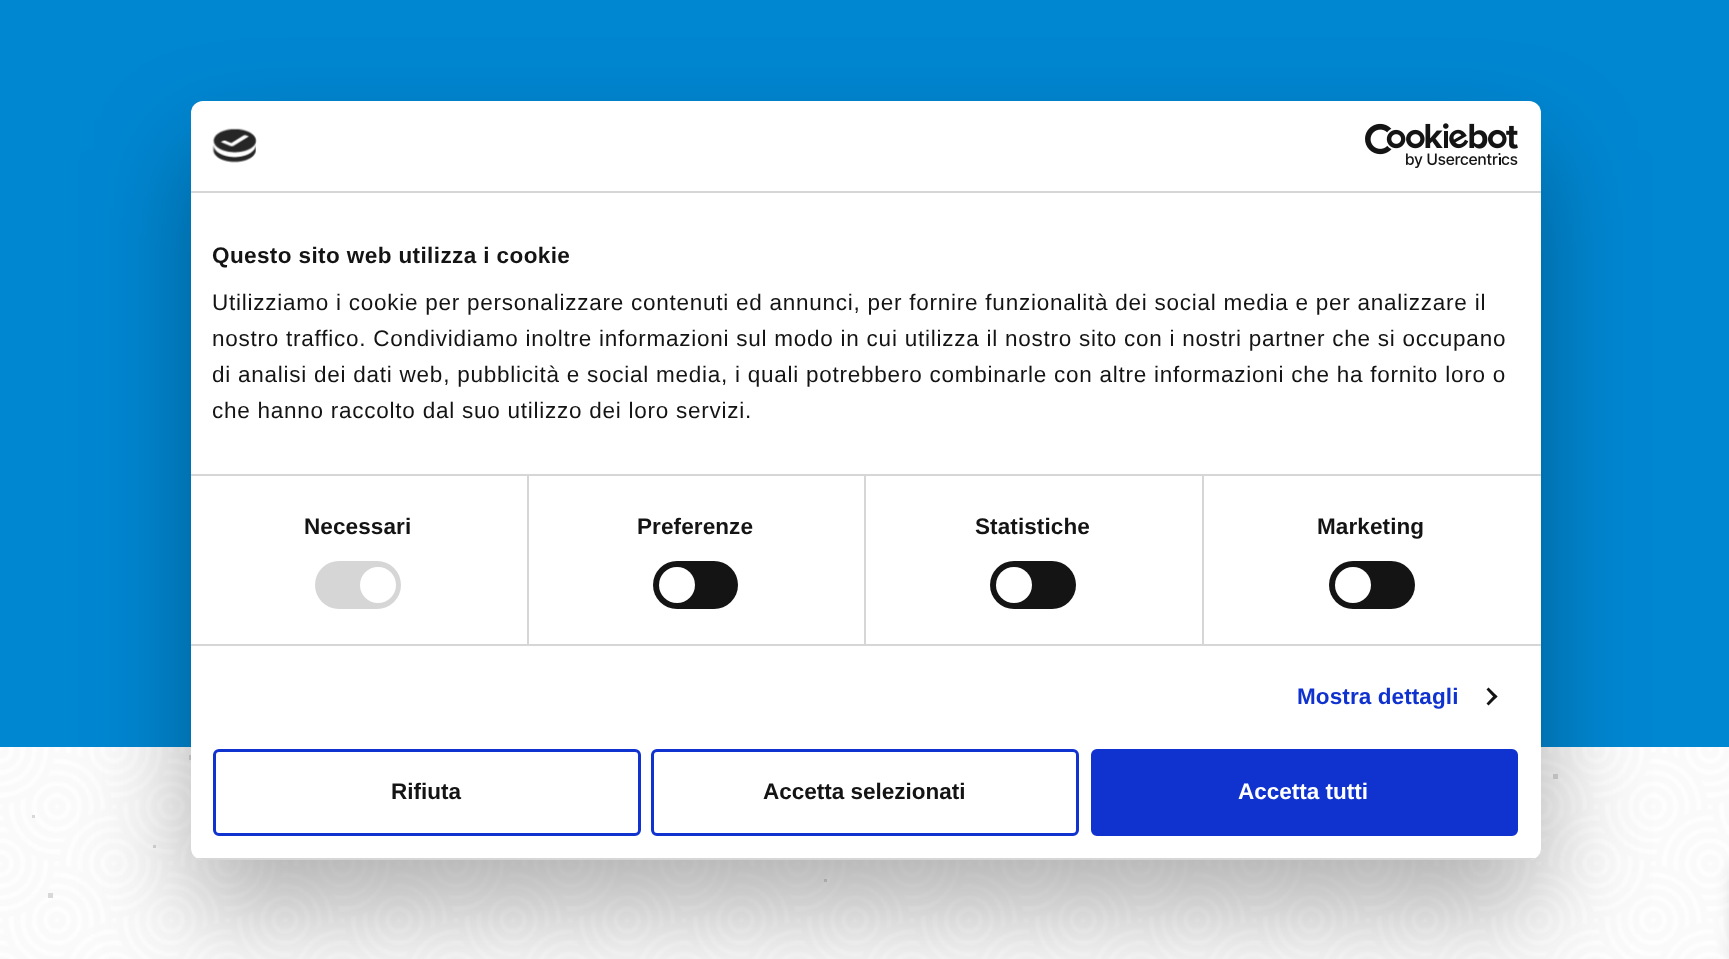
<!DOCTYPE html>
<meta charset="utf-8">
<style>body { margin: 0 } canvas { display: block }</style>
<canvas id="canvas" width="1729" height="959"></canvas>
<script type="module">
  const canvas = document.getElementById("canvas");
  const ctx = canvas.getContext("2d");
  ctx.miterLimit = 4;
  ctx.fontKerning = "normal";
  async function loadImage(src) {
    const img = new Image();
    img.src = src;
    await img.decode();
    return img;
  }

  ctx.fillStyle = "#ffffff";
  ctx.fillRect(0, 0, 1729, 959);
  ctx.drawImage(await loadImage("img1.png"), 0, 747, 1729, 212);
  ctx.fillStyle = "#0087d2";
  ctx.fillRect(0, 0, 1729, 747);
  ctx.fillStyle = "#d7d9d9";
  ctx.fillRect(1553, 774, 5, 5);
  ctx.fillRect(189, 755, 5, 5);
  ctx.fillRect(48, 893, 5, 5);
  ctx.fillRect(824, 879, 3, 3);
  ctx.fillRect(153, 845, 3, 3);
  ctx.fillStyle = "rgba(0, 0, 0, 0.3)";
  ctx.filter = "blur(51px)";
  ctx.beginPath();
  ctx.roundRect(191, 149, 1350, 759, 12);
  ctx.fill();
  ctx.filter = "none";
  ctx.fillStyle = "#ffffff";
  ctx.beginPath();
  ctx.roundRect(191, 101, 1350, 759, 12);
  ctx.fill();
  ctx.fillStyle = "#d6d6d6";
  ctx.fillRect(191, 191, 1350, 2);
  ctx.drawImage(await loadImage("img2.png"), 212, 128, 45, 35);
  ctx.drawImage(await loadImage("img3.png"), 1365, 123, 153, 45);
  ctx.fillRect(191, 474, 1350, 2);
  ctx.letterSpacing = "0.4px";
  ctx.font = "bold 22.5px Liberation Sans";
  ctx.fillStyle = "#141414";
  ctx.fillText("Questo sito web utilizza i cookie", 212, 263);
  ctx.letterSpacing = "0.75px";
  ctx.font = "22.5px Liberation Sans";
  ctx.fillText("Utilizziamo i cookie per personalizzare contenuti ed annunci, per fornire funzionalità dei social media e per analizzare il", 212, 310);
  ctx.fillText("nostro traffico. Condividiamo inoltre informazioni sul modo in cui utilizza il nostro sito con i nostri partner che si occupano", 212, 346);
  ctx.fillText("di analisi dei dati web, pubblicità e social media, i quali potrebbero combinarle con altre informazioni che ha fornito loro o", 212, 382);
  ctx.fillText("che hanno raccolto dal suo utilizzo dei loro servizi.", 212, 418);
  ctx.fillStyle = "#d6d6d6";
  ctx.fillRect(191, 644, 1350, 2);
  ctx.fillRect(527, 476, 2, 168);
  ctx.letterSpacing = "0.1px";
  ctx.font = "bold 22.5px Liberation Sans";
  ctx.fillStyle = "#141414";
  ctx.fillText("Necessari", 304, 534);
  ctx.fillStyle = "#d6d6d6";
  ctx.beginPath();
  ctx.roundRect(315, 561, 86, 48, 24);
  ctx.fill();
  ctx.fillStyle = "#ffffff";
  ctx.beginPath();
  ctx.arc(378, 585, 18, 0, Math.PI * 2);
  ctx.fill();
  ctx.fillStyle = "#d6d6d6";
  ctx.fillRect(864, 476, 2, 168);
  ctx.fillStyle = "#141414";
  ctx.fillText("Preferenze", 637, 534);
  ctx.beginPath();
  ctx.roundRect(653, 561, 85, 48, 24);
  ctx.fill();
  ctx.fillStyle = "#ffffff";
  ctx.beginPath();
  ctx.arc(677, 585, 18, 0, Math.PI * 2);
  ctx.fill();
  ctx.fillStyle = "#d6d6d6";
  ctx.fillRect(1202, 476, 2, 168);
  ctx.fillStyle = "#141414";
  ctx.fillText("Statistiche", 975, 534);
  ctx.beginPath();
  ctx.roundRect(990, 561, 86, 48, 24);
  ctx.fill();
  ctx.fillStyle = "#ffffff";
  ctx.beginPath();
  ctx.arc(1014, 585, 18, 0, Math.PI * 2);
  ctx.fill();
  ctx.fillStyle = "#141414";
  ctx.fillText("Marketing", 1317, 534);
  ctx.beginPath();
  ctx.roundRect(1329, 561, 86, 48, 24);
  ctx.fill();
  ctx.fillStyle = "#ffffff";
  ctx.beginPath();
  ctx.arc(1353, 585, 18, 0, Math.PI * 2);
  ctx.fill();
  ctx.fillStyle = "#1032cf";
  ctx.fillText("Mostra dettagli", 1297, 704);
  ctx.fillStyle = "#141414";
  ctx.beginPath();
  ctx.moveTo(1488.5, 687.5);
  ctx.lineTo(1497.5, 696.5);
  ctx.lineTo(1495, 698.5);
  ctx.lineTo(1486.5, 689.5);
  ctx.closePath();
  ctx.fill();
  ctx.beginPath();
  ctx.moveTo(1495, 694.5);
  ctx.lineTo(1497.5, 696.5);
  ctx.lineTo(1488.5, 705.5);
  ctx.lineTo(1486.5, 703.5);
  ctx.closePath();
  ctx.fill();
  ctx.save();
  ctx.beginPath();
  ctx.roundRect(191, 101, 1350, 759, 12);
  ctx.clip();
  ctx.fillStyle = "#d6d6d6";
  ctx.fillRect(191, 858, 1350, 2);
  ctx.restore();
  ctx.beginPath();
  ctx.roundRect(214.5, 750.5, 425, 84, 4.5);
  ctx.strokeStyle = "#1032cf";
  ctx.lineWidth = 3;
  ctx.stroke();
  ctx.letterSpacing = "0px";
  ctx.fillText("Rifiuta", 391, 799);
  ctx.beginPath();
  ctx.roundRect(652.5, 750.5, 425, 84, 4.5);
  ctx.stroke();
  ctx.fillText("Accetta selezionati", 763, 799);
  ctx.fillStyle = "#1032cf";
  ctx.beginPath();
  ctx.roundRect(1092.5, 750.5, 424, 84, 4.5);
  ctx.fill();
  ctx.stroke();
  ctx.fillStyle = "#ffffff";
  ctx.fillText("Accetta tutti", 1238, 799);
  ctx.fillStyle = "#d7d9d9";
  ctx.fillRect(32, 815, 3, 3);
  ctx.fillStyle = "rgba(0, 0, 0, 0.1)";
  ctx.filter = "blur(7.5px)";
  ctx.beginPath();
  ctx.rect(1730, 867, 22, 92);
  ctx.fill();
  ctx.filter = "none";
</script>
